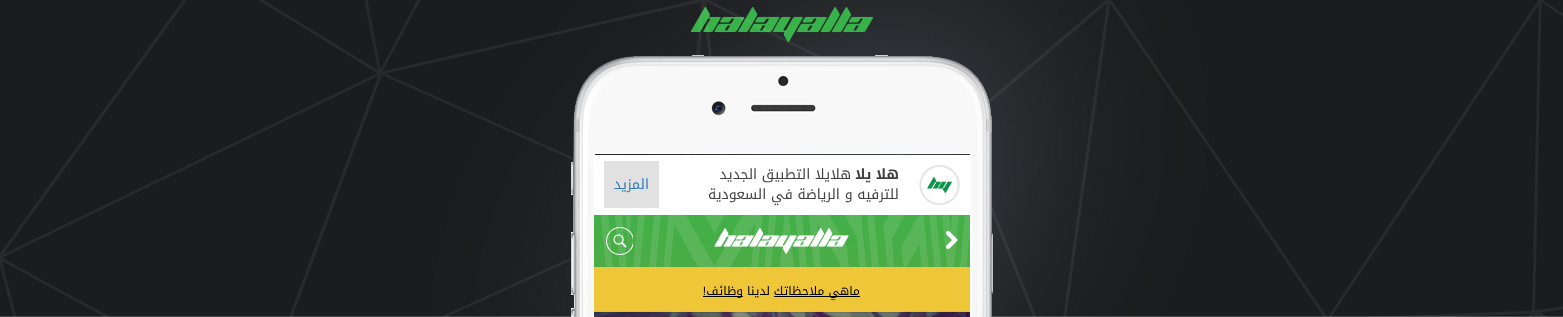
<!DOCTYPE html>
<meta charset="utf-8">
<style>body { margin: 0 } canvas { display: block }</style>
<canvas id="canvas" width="1563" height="317"></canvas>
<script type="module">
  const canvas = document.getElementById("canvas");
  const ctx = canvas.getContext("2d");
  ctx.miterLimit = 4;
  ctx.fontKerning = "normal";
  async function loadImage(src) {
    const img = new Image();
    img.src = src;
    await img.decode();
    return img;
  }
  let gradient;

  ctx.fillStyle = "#ffffff";
  ctx.fillRect(0, 0, 1563, 317);
  ctx.drawImage(await loadImage("img1.png"), 0, 0, 1563, 317);
  ctx.drawImage(await loadImage("img2.png"), 691, 7, 182, 35);
  ctx.drawImage(await loadImage("img3.png"), 0, 0, 1563, 317);
  ctx.drawImage(await loadImage("img4.png"), 571, 55, 422, 262);
  ctx.drawImage(await loadImage("img5.png"), 594, 215, 376, 52);
  ctx.fillRect(594, 155, 376, 60);
  ctx.drawImage(await loadImage("img6.png"), 919, 165, 41, 40);
  ctx.direction = "rtl";
  ctx.font = "bold 14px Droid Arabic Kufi";
  ctx.fillStyle = "#414142";
  ctx.fillText("هلا يلا", 899, 179);
  ctx.font = "14px Droid Arabic Kufi";
  ctx.fillText("هلايلا التطبيق الجديد", 851, 179);
  ctx.fillText("للترفيه و الرياضة في السعودية", 899, 199);
  ctx.fillStyle = "#e1e1e1";
  ctx.fillRect(604, 161, 55, 47);
  ctx.fillStyle = "#337ab7";
  ctx.fillText("المزيد", 649, 189);
  ctx.drawImage(await loadImage("img7.png"), 946, 231, 12, 18);
  ctx.drawImage(await loadImage("img8.png"), 714, 228, 135, 26);
  ctx.drawImage(await loadImage("img9.png"), 606, 227, 27, 28);
  ctx.fillStyle = "#efc637";
  ctx.fillRect(594, 267, 376, 45);
  ctx.fillStyle = "#000000";
  ctx.fillRect(774, 296, 86, 1);
  ctx.font = "12px Droid Arabic Kufi";
  ctx.fillText("ماهي ملاحظاتك", 860, 295);
  ctx.fillText("لدينا", 770, 295);
  ctx.fillRect(703, 296, 40, 1);
  ctx.fillText("وظائف", 743, 295);
  ctx.font = "12px Liberation Sans";
  ctx.fillText("!", 706, 295);
  ctx.drawImage(await loadImage("img10.png"), 594, 311, 376, 6);
  gradient = ctx.createLinearGradient(782, 312, 782, 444);
  gradient.addColorStop(0.57, "rgba(0, 0, 0, 0.45)");
  gradient.addColorStop(1, "rgba(0, 0, 0, 0)");
  ctx.fillStyle = gradient;
  ctx.fillRect(594, 312, 376, 5);
</script>
